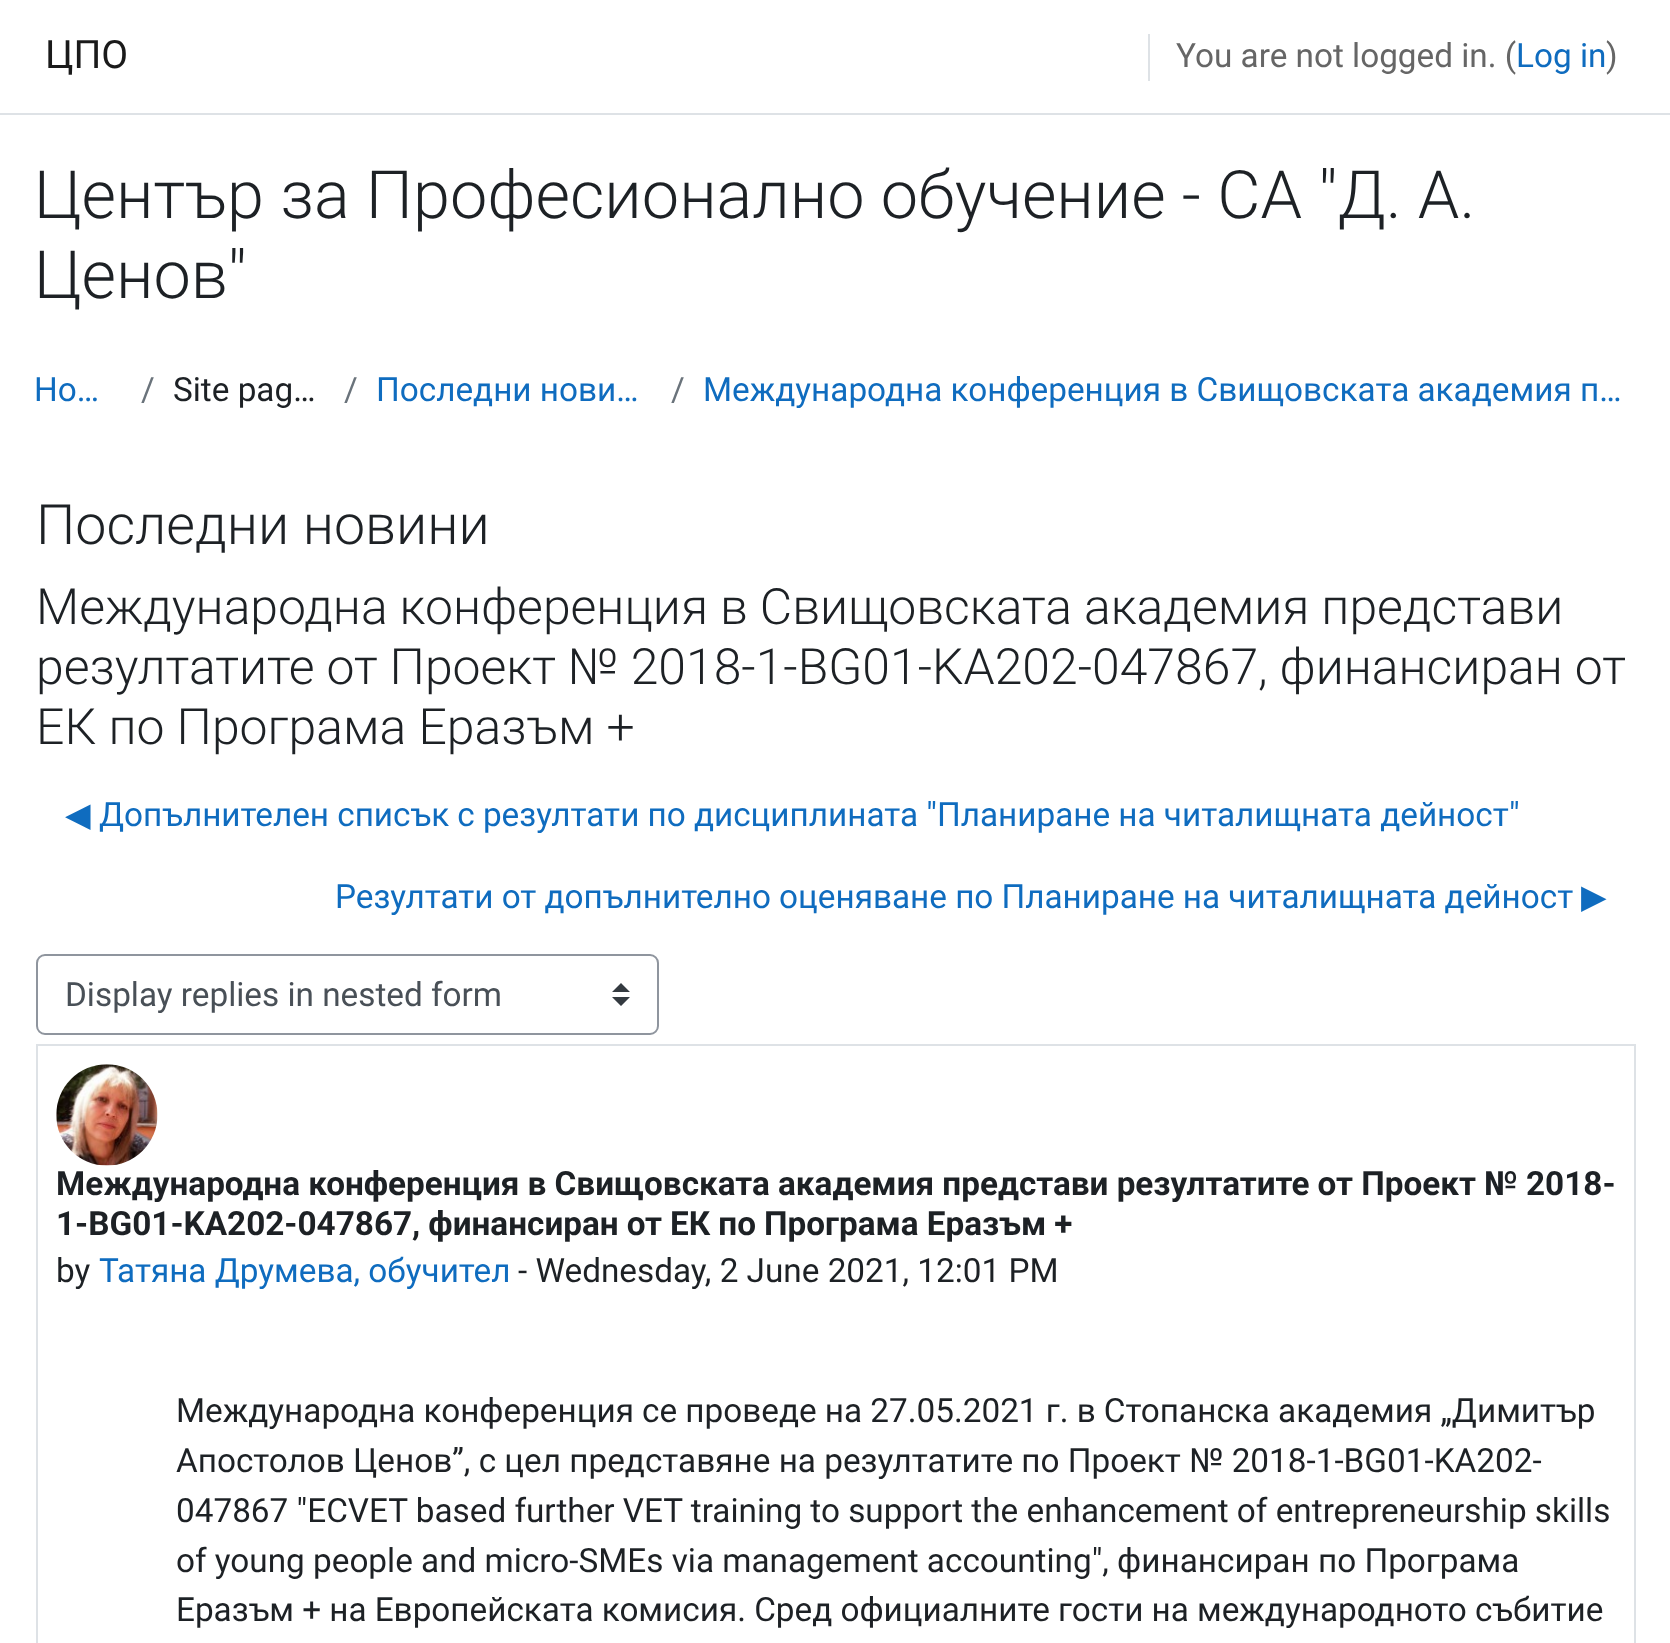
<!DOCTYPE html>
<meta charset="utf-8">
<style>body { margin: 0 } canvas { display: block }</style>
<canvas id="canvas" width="1670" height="1643"></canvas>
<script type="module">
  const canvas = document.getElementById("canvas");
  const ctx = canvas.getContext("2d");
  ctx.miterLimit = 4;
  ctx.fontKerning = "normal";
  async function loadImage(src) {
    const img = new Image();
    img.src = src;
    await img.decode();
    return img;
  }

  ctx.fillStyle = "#ffffff";
  ctx.fillRect(0, 0, 1670, 1643);
  ctx.fillStyle = "#dee2e6";
  ctx.fillRect(0, 113, 1670, 2);
  ctx.font = "39px Roboto";
  ctx.fillStyle = "#1a1a1a";
  ctx.fillText("ЦПО", 45, 68);
  ctx.fillStyle = "#dee2e6";
  ctx.fillRect(1148, 34, 2, 47);
  ctx.font = "33.3px Roboto";
  ctx.fillStyle = "#666666";
  ctx.fillText("You are not logged in. (", 1176, 67);
  ctx.fillStyle = "#0f6cbf";
  ctx.fillText("Log in", 1516, 67);
  ctx.fillStyle = "#666666";
  ctx.fillText(")", 1606, 67);
  ctx.font = "300 66.6px Roboto";
  ctx.fillStyle = "#1d2125";
  ctx.fillText("Център за Професионално обучение - СА \"Д. А.", 34, 218);
  ctx.fillText("Ценов\"", 34, 298);
  ctx.font = "33.3px Roboto";
  ctx.fillStyle = "#0f6cbf";
  ctx.fillText("Ho…", 34, 401);
  ctx.fillStyle = "#6a737b";
  ctx.fillText("/", 141, 401);
  ctx.fillStyle = "#1d2125";
  ctx.fillText("Site pag…", 173, 401);
  ctx.fillStyle = "#6a737b";
  ctx.fillText("/", 344, 401);
  ctx.fillStyle = "#0f6cbf";
  ctx.fillText("Последни нови…", 376, 401);
  ctx.fillStyle = "#6a737b";
  ctx.fillText("/", 671, 401);
  ctx.fillStyle = "#0f6cbf";
  ctx.fillText("Международна конференция в Свищовската академия п…", 703, 401);
  ctx.font = "300 55.5px Roboto";
  ctx.fillStyle = "#1d2125";
  ctx.fillText("Последни новини", 36, 544);
  ctx.wordSpacing = "-0.25px";
  ctx.font = "300 49.9px Roboto";
  ctx.fillText("Международна конференция в Свищовската академия представи", 36, 624);
  ctx.fillText("резултатите от Проект № 2018-1-BG01-KA202-047867, финансиран от", 36, 684);
  ctx.wordSpacing = "0px";
  ctx.fillText("ЕК по Програма Еразъм +", 36, 744);
  ctx.font = "33.3px DejaVu Sans";
  ctx.fillStyle = "#0f6cbf";
  ctx.fillText("◀︎", 65, 826);
  ctx.wordSpacing = "-0.1px";
  ctx.font = "33.3px Roboto";
  ctx.fillText("Допълнителен списък с резултати по дисциплината \"Планиране на читалищната дейност\"", 99, 826);
  ctx.fillText("Резултати от допълнително оценяване по Планиране на читалищната дейност", 335, 908);
  ctx.wordSpacing = "0px";
  ctx.font = "33.3px DejaVu Sans";
  ctx.fillText("▶︎", 1581, 908);
  ctx.fillStyle = "#343a40";
  ctx.beginPath();
  ctx.moveTo(621, 983);
  ctx.lineTo(612, 992);
  ctx.lineTo(630, 992);
  ctx.closePath();
  ctx.moveTo(621, 1006);
  ctx.lineTo(612, 997);
  ctx.lineTo(630, 997);
  ctx.closePath();
  ctx.fill();
  ctx.beginPath();
  ctx.roundRect(37, 955, 621, 79, 8);
  ctx.strokeStyle = "#8f959e";
  ctx.lineWidth = 2;
  ctx.stroke();
  ctx.font = "33.3px Roboto";
  ctx.fillStyle = "#495057";
  ctx.fillText("Display replies in nested form", 65, 1006);
  ctx.strokeStyle = "#dee2e6";
  ctx.strokeRect(37, 1045, 1598, 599);
  ctx.drawImage(await loadImage("img1.png"), 56, 1064, 102, 102);
  ctx.wordSpacing = "-0.1px";
  ctx.font = "bold 33.3px Roboto";
  ctx.fillStyle = "#1d2125";
  ctx.fillText("Международна конференция в Свищовската академия представи резултатите от Проект № 2018-", 56, 1195);
  ctx.wordSpacing = "-0.25px";
  ctx.fillText("1-BG01-KA202-047867, финансиран от ЕК по Програма Еразъм +", 56, 1235);
  ctx.wordSpacing = "0px";
  ctx.font = "33.3px Roboto";
  ctx.fillText("by", 56, 1282);
  ctx.fillStyle = "#0f6cbf";
  ctx.fillText("Татяна Друмева, обучител", 99, 1282);
  ctx.fillStyle = "#1d2125";
  ctx.fillText("- Wednesday, 2 June 2021, 12:01 PM", 518, 1282);
  ctx.wordSpacing = "-0.1px";
  ctx.fillText("Международна конференция се проведе на 27.05.2021 г. в Стопанска академия „Димитър", 176, 1422);
  ctx.wordSpacing = "0px";
  ctx.fillText("Апостолов Ценов”, с цел представяне на резултатите по Проект № 2018-1-BG01-KA202-", 176, 1472);
  ctx.fillText("047867 \"ECVET based further VET training to support the enhancement of entrepreneurship skills", 176, 1522);
  ctx.fillText("of young people and micro-SMEs via management accounting\", финансиран по Програма", 176, 1572);
  ctx.wordSpacing = "-0.1px";
  ctx.fillText("Еразъм + на Европейската комисия. Сред официалните гости на международното събитие", 176, 1621);
</script>
